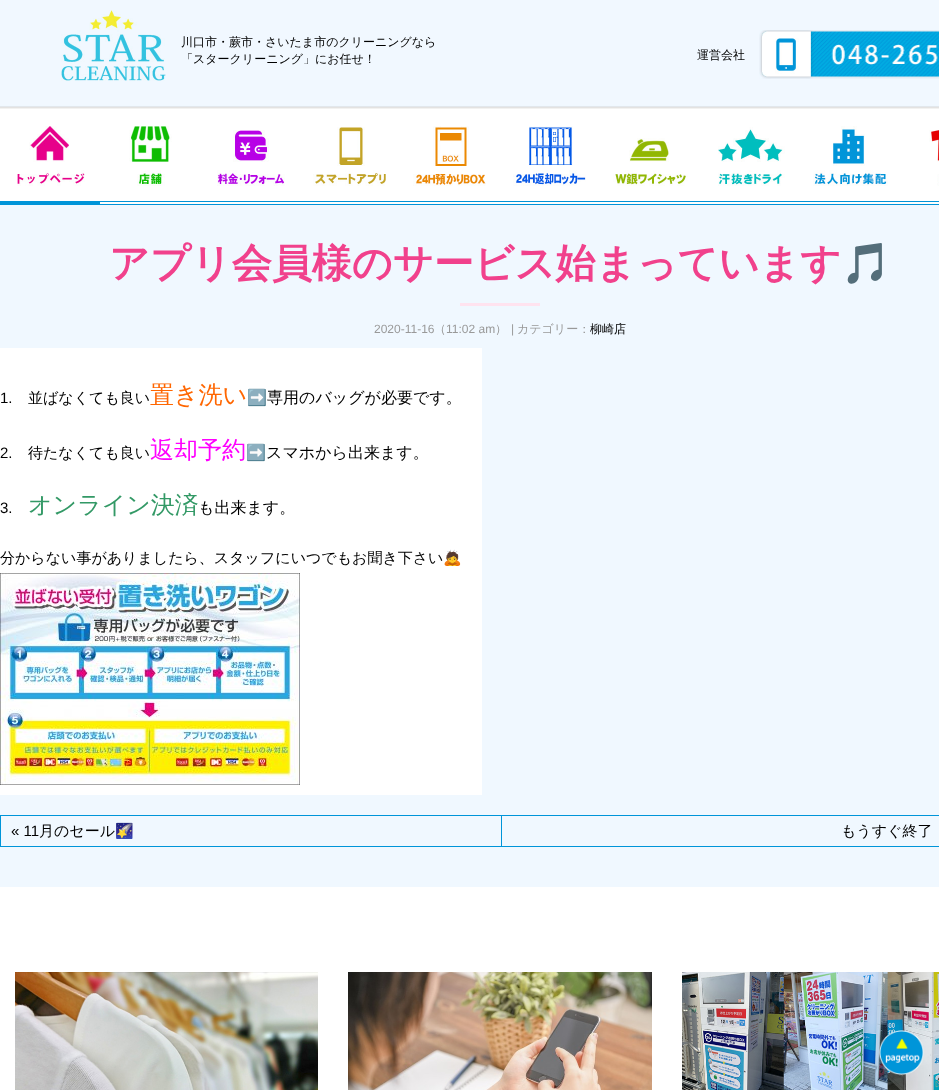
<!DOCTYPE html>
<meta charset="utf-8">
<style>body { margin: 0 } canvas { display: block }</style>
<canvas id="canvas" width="939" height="1090"></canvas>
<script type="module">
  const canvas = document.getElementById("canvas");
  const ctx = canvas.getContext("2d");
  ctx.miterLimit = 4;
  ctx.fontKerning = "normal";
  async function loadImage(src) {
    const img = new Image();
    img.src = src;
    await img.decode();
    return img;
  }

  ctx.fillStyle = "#ffffff";
  ctx.fillRect(0, 0, 939, 1090);
  ctx.drawImage(await loadImage("img1.png"), 0, 0, 939, 109);
  ctx.drawImage(await loadImage("img2.png"), 61, 10, 105, 71);
  ctx.font = "500 12px WenQuanYi Zen Hei";
  ctx.fillStyle = "#000000";
  ctx.fillText("川口市・蕨市・さいたま市のクリーニングなら", 181, 46);
  ctx.fillText("「スタークリーニング」にお任せ！", 181, 63);
  ctx.fillText("運営会社", 697, 59);
  ctx.drawImage(await loadImage("img3.png"), 759, 30, 180, 49);
  ctx.drawImage(await loadImage("img4.png"), 100, 201, 839, 4);
  ctx.fillStyle = "#0095d9";
  ctx.fillRect(0, 201, 100, 4);
  ctx.drawImage(await loadImage("img5.png"), 17, 126, 68, 60);
  ctx.drawImage(await loadImage("img6.png"), 129, 126, 43, 60);
  ctx.drawImage(await loadImage("img7.png"), 217, 130, 68, 56);
  ctx.drawImage(await loadImage("img8.png"), 313, 127, 73, 59);
  ctx.drawImage(await loadImage("img9.png"), 413, 126, 73, 60);
  ctx.drawImage(await loadImage("img10.png"), 513, 126, 73, 60);
  ctx.drawImage(await loadImage("img11.png"), 613, 138, 75, 48);
  ctx.drawImage(await loadImage("img12.png"), 718, 127, 67, 59);
  ctx.drawImage(await loadImage("img13.png"), 813, 126, 75, 60);
  ctx.drawImage(await loadImage("img14.png"), 929, 130, 10, 56);
  ctx.fillStyle = "#f0f8ff";
  ctx.fillRect(0, 205, 939, 682);
  ctx.font = "bold 40px WenQuanYi Zen Hei";
  ctx.fillStyle = "#f1418c";
  ctx.fillText("アプリ会員様のサービス始まっています", 109, 277);
  ctx.font = "bold 40px Noto Color Emoji";
  ctx.fillText("🎵", 841, 277);
  ctx.fillStyle = "#ffe3ef";
  ctx.fillRect(460, 303, 80, 3);
  ctx.font = "12px Liberation Sans";
  ctx.fillStyle = "#999999";
  ctx.fillText("2020-11-16", 374, 333);
  ctx.font = "500 12px WenQuanYi Zen Hei";
  ctx.fillText("（", 434, 333);
  ctx.font = "12px Liberation Sans";
  ctx.fillText("11:02 am", 446, 333);
  ctx.font = "500 12px WenQuanYi Zen Hei";
  ctx.fillText("）", 495, 333);
  ctx.font = "12px Liberation Sans";
  ctx.fillText("|", 511, 333);
  ctx.font = "500 12px WenQuanYi Zen Hei";
  ctx.fillText("カテゴリー：", 517, 333);
  ctx.fillStyle = "#000000";
  ctx.fillText("柳崎店", 590, 333);
  ctx.fillStyle = "#ffffff";
  ctx.fillRect(0, 348, 482, 447);
  ctx.font = "15px Liberation Sans";
  ctx.fillStyle = "#000000";
  ctx.fillText("1.", 0, 403);
  ctx.font = "500 15px WenQuanYi Zen Hei";
  ctx.fillText("並ばなくても良い", 28, 403);
  ctx.font = "500 24px WenQuanYi Zen Hei";
  ctx.fillStyle = "#ff6600";
  ctx.fillText("置き洗い", 150, 403);
  ctx.font = "16px Noto Color Emoji";
  ctx.fillStyle = "#000000";
  ctx.fillText("➡️", 247, 403);
  ctx.font = "500 16px WenQuanYi Zen Hei";
  ctx.fillText("専用のバッグが必要です。", 267, 403);
  ctx.font = "15px Liberation Sans";
  ctx.fillText("2.", 0, 458);
  ctx.font = "500 15px WenQuanYi Zen Hei";
  ctx.fillText("待たなくても良い", 28, 458);
  ctx.font = "500 24px WenQuanYi Zen Hei";
  ctx.fillStyle = "#ff00ff";
  ctx.fillText("返却予約", 150, 458);
  ctx.font = "16px Noto Color Emoji";
  ctx.fillStyle = "#000000";
  ctx.fillText("➡️", 246, 458);
  ctx.font = "500 16px WenQuanYi Zen Hei";
  ctx.fillText("スマホから出来ます。", 266, 458);
  ctx.font = "15px Liberation Sans";
  ctx.fillText("3.", 0, 513);
  ctx.font = "500 24px WenQuanYi Zen Hei";
  ctx.fillStyle = "#339966";
  ctx.fillText("オンライン決済", 28, 513);
  ctx.font = "500 16px WenQuanYi Zen Hei";
  ctx.fillStyle = "#000000";
  ctx.fillText("も出来ます。", 198, 513);
  ctx.font = "500 15px WenQuanYi Zen Hei";
  ctx.fillText("分からない事がありましたら、スタッフにいつでもお聞き下さい", 0, 563);
  ctx.font = "15px Noto Color Emoji";
  ctx.fillText("🙇", 443, 563);
  ctx.drawImage(await loadImage("img15.png"), 0, 573, 300, 212);
  ctx.strokeStyle = "#0095d9";
  ctx.strokeRect(0.5, 815.5, 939, 31);
  ctx.font = "15px Liberation Sans";
  ctx.fillText("« 11", 11, 836);
  ctx.font = "500 15px WenQuanYi Zen Hei";
  ctx.fillText("月のセール", 39, 836);
  ctx.font = "15px Noto Color Emoji";
  ctx.fillText("🌠", 115, 836);
  ctx.fillStyle = "#0095d9";
  ctx.fillRect(501, 816, 1, 30);
  ctx.font = "500 15px WenQuanYi Zen Hei";
  ctx.fillStyle = "#000000";
  ctx.fillText("もうすぐ終了", 841, 836);
  ctx.drawImage(await loadImage("img16.png"), 15, 972, 303, 118);
  ctx.drawImage(await loadImage("img17.png"), 348, 972, 304, 118);
  ctx.drawImage(await loadImage("img18.png"), 682, 972, 257, 118);
  ctx.drawImage(await loadImage("img19.png"), 879, 1030, 45, 45);
</script>
